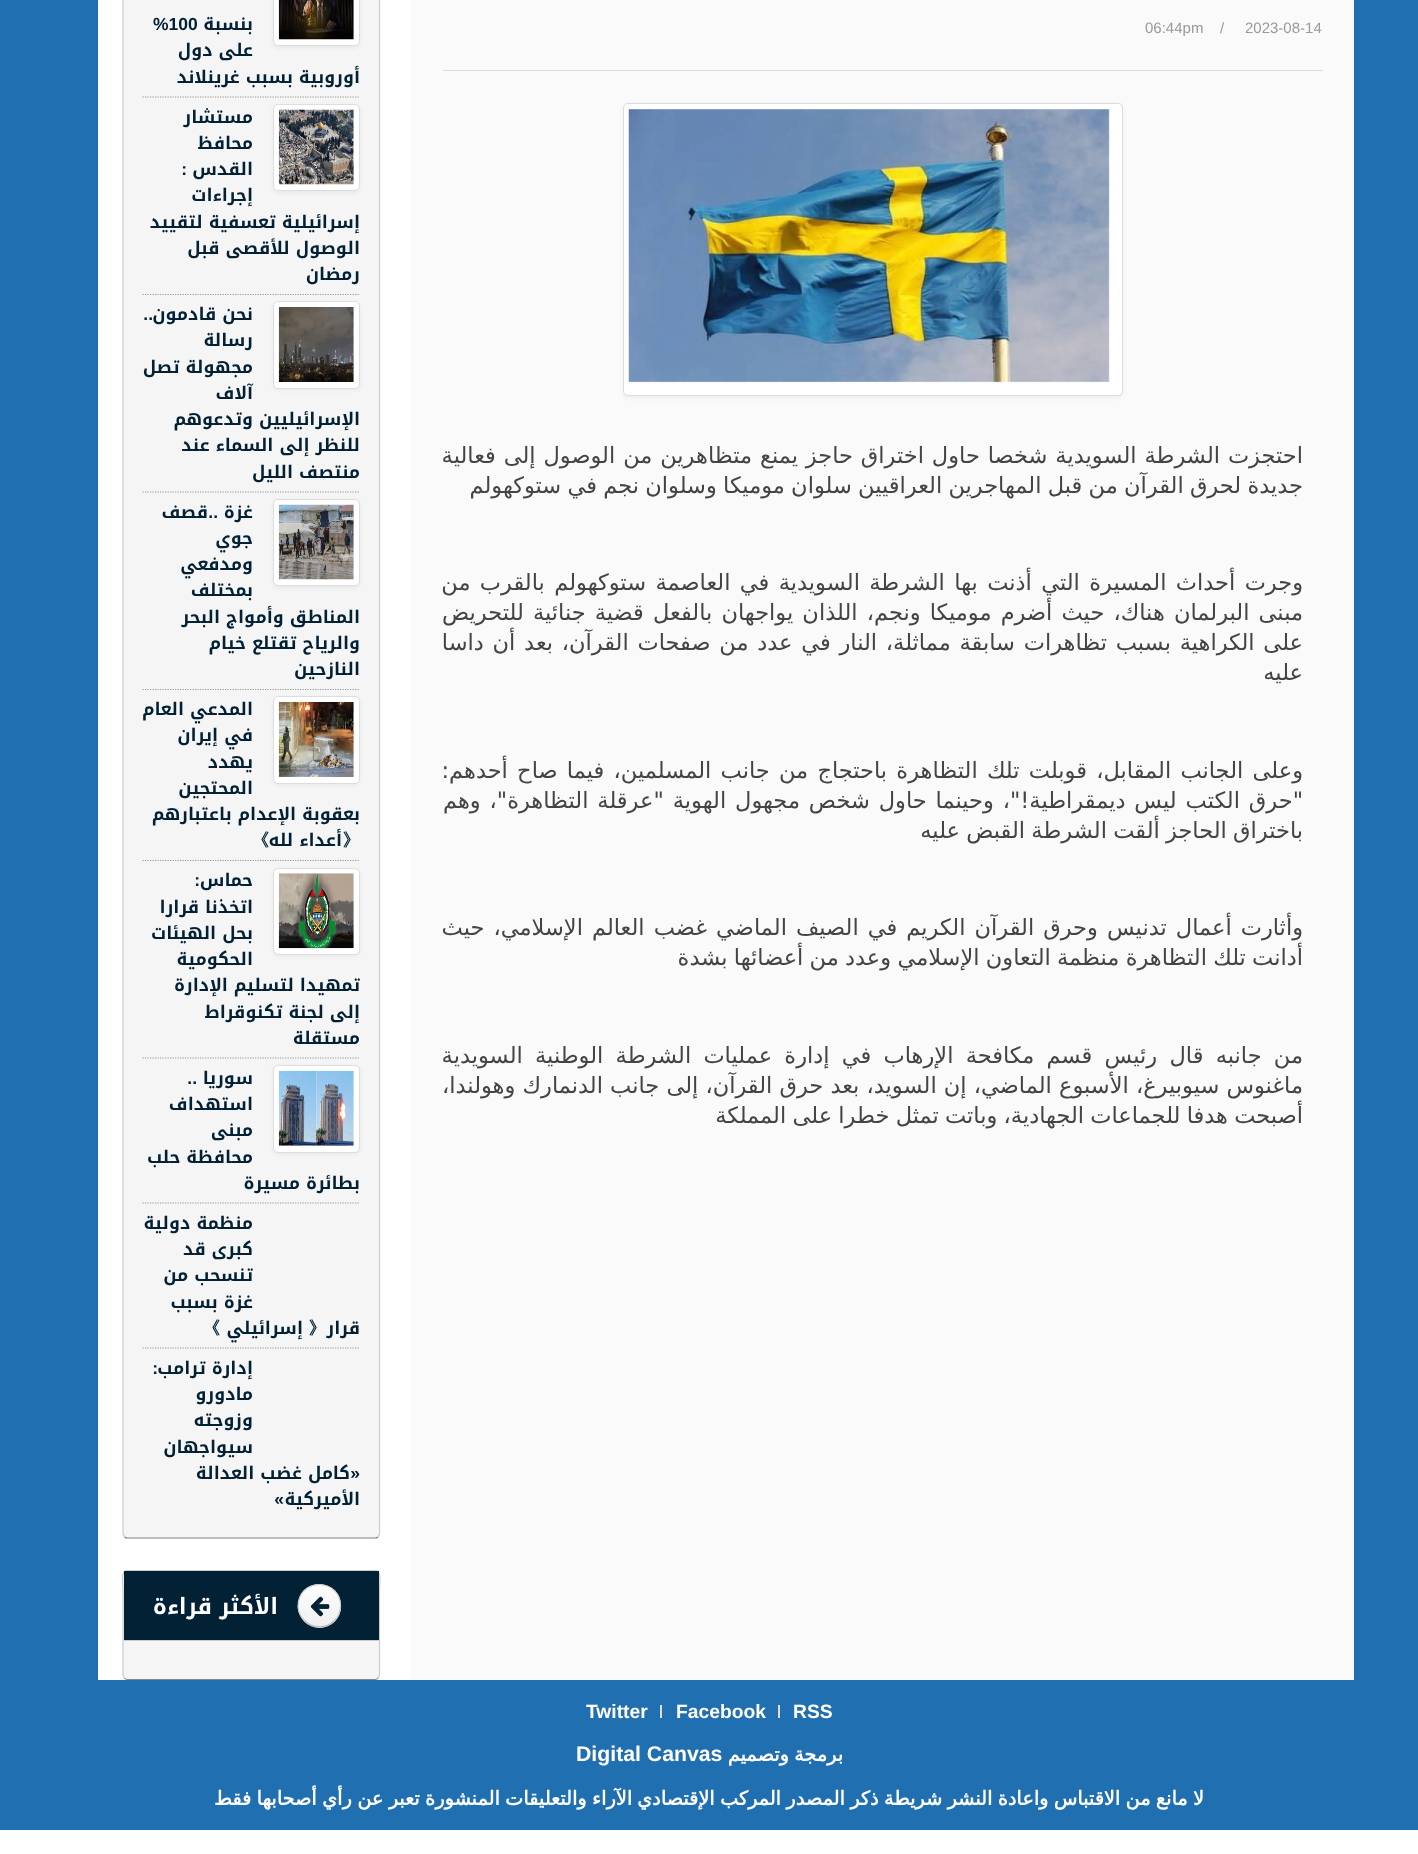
<!DOCTYPE html>
<meta charset="utf-8">
<style>body { margin: 0 } canvas { display: block }</style>
<canvas id="canvas" width="1418" height="1854"></canvas>
<script type="module">
  const canvas = document.getElementById("canvas");
  const ctx = canvas.getContext("2d");
  ctx.miterLimit = 4;
  ctx.fontKerning = "normal";
  async function loadImage(src) {
    const img = new Image();
    img.src = src;
    await img.decode();
    return img;
  }
  let gradient;

  ctx.fillStyle = "#ffffff";
  ctx.fillRect(0, 0, 1418, 1854);
  ctx.fillStyle = "#206fb0";
  ctx.fillRect(0, 0, 1418, 1830);
  ctx.fillStyle = "#ffffff";
  ctx.fillRect(98, 0, 313, 1680);
  ctx.fillStyle = "#fafafa";
  ctx.fillRect(411, 0, 943, 1680);
  ctx.font = "15px Liberation Sans";
  ctx.fillStyle = "#999999";
  ctx.fillText("2023-08-14", 1245, 33);
  ctx.fillText("/", 1220, 33);
  ctx.fillText("06:44pm", 1145, 33);
  ctx.fillStyle = "#dddddd";
  ctx.fillRect(443, 70, 880, 1);
  ctx.fillStyle = "rgba(0, 0, 0, 0.05)";
  ctx.filter = "blur(2px)";
  ctx.beginPath();
  ctx.roundRect(623, 104, 500, 294, 5);
  ctx.fill();
  ctx.filter = "none";
  ctx.fillStyle = "#ffffff";
  ctx.beginPath();
  ctx.roundRect(623.5, 103.5, 499, 292, 4.5);
  ctx.fill();
  ctx.strokeStyle = "#dddddd";
  ctx.stroke();
  ctx.drawImage(await loadImage("img1.png"), 628, 109, 482, 274);
  ctx.wordSpacing = "0.75px";
  ctx.direction = "rtl";
  ctx.font = "22.5px DejaVu Sans";
  ctx.fillStyle = "#444444";
  ctx.fillText("احتجزت الشرطة السويدية شخصا حاول اختراق حاجز يمنع متظاهرين من الوصول إلى فعالية", 1303, 463);
  ctx.wordSpacing = "-0.9px";
  ctx.fillText("جديدة لحرق القرآن من قبل المهاجرين العراقيين سلوان موميكا وسلوان نجم في ستوكهولم", 1303, 493);
  ctx.wordSpacing = "2.25px";
  ctx.fillText("وجرت أحداث المسيرة التي أذنت بها الشرطة السويدية في العاصمة ستوكهولم بالقرب من", 1303, 590);
  ctx.wordSpacing = "2px";
  ctx.fillText("مبنى البرلمان هناك، حيث أضرم موميكا ونجم، اللذان يواجهان بالفعل قضية جنائية للتحريض", 1303, 620);
  ctx.wordSpacing = "1.6px";
  ctx.fillText("على الكراهية بسبب تظاهرات سابقة مماثلة، النار في عدد من صفحات القرآن، بعد أن داسا", 1303, 650);
  ctx.wordSpacing = "0px";
  ctx.fillText("عليه", 1303, 680);
  ctx.wordSpacing = "2.1px";
  ctx.fillText("وعلى الجانب المقابل، قوبلت تلك التظاهرة باحتجاج من جانب المسلمين، فيما صاح أحدهم:", 1303, 778);
  ctx.wordSpacing = "1.75px";
  ctx.fillText("\"حرق الكتب ليس ديمقراطية!\"، وحينما حاول شخص مجهول الهوية \"عرقلة التظاهرة\"، وهم", 1303, 808);
  ctx.wordSpacing = "-0.9px";
  ctx.fillText("باختراق الحاجز ألقت الشرطة القبض عليه", 1303, 838);
  ctx.wordSpacing = "1.9px";
  ctx.fillText("وأثارت أعمال تدنيس وحرق القرآن الكريم في الصيف الماضي غضب العالم الإسلامي، حيث", 1303, 935);
  ctx.wordSpacing = "-0.9px";
  ctx.fillText("أدانت تلك التظاهرة منظمة التعاون الإسلامي وعدد من أعضائها بشدة", 1303, 965);
  ctx.wordSpacing = "5.1px";
  ctx.fillText("من جانبه قال رئيس قسم مكافحة الإرهاب في إدارة عمليات الشرطة الوطنية السويدية", 1303, 1063);
  ctx.wordSpacing = "0px";
  ctx.fillText("ماغنوس سيوبيرغ، الأسبوع الماضي، إن السويد، بعد حرق القرآن، إلى جانب الدنمارك وهولندا،", 1303, 1093);
  ctx.wordSpacing = "-0.9px";
  ctx.fillText("أصبحت هدفا للجماعات الجهادية، وباتت تمثل خطرا على المملكة", 1303, 1123);
  ctx.fillStyle = "#f5f5f5";
  ctx.beginPath();
  ctx.roundRect(123, -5, 257, 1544, 5);
  ctx.fill();
  ctx.beginPath();
  ctx.moveTo(378, 1537);
  ctx.bezierCurveTo(377.5, 1537.5, 376, 1538, 375, 1538);
  ctx.lineTo(127.5, 1538);
  ctx.bezierCurveTo(126.5, 1538, 125, 1537.5, 124.5, 1537);
  ctx.strokeStyle = "#888888";
  ctx.lineWidth = 1.2;
  ctx.stroke();
  ctx.beginPath();
  ctx.moveTo(124.5, 1537);
  ctx.lineTo(123, 1534);
  ctx.lineTo(123, -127);
  ctx.bezierCurveTo(123.5, -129, 125.5, -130.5, 127.5, -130.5);
  ctx.lineTo(375, -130.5);
  ctx.bezierCurveTo(377.5, -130.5, 379.5, -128.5, 379.5, -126);
  ctx.lineTo(379.5, 1534);
  ctx.lineTo(378, 1537);
  ctx.strokeStyle = "#cccccc";
  ctx.stroke();
  ctx.beginPath();
  ctx.moveTo(142.5, 97);
  ctx.lineTo(360, 97);
  ctx.strokeStyle = "#999999";
  ctx.setLineDash([1.25, 1.25]);
  ctx.stroke();
  ctx.fillStyle = "rgba(0, 0, 0, 0.05)";
  ctx.filter = "blur(2px)";
  ctx.beginPath();
  ctx.roundRect(273, -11, 87, 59, 5);
  ctx.fill();
  ctx.filter = "none";
  ctx.fillStyle = "#ffffff";
  ctx.beginPath();
  ctx.roundRect(273.5, -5.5, 86, 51, 4.5);
  ctx.fill();
  ctx.strokeStyle = "#dddddd";
  ctx.lineWidth = 1;
  ctx.setLineDash([]);
  ctx.stroke();
  ctx.drawImage(await loadImage("img2.png"), 278, 0, 76, 40);
  ctx.wordSpacing = "0px";
  ctx.font = "bold 17.5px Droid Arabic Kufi";
  ctx.fillStyle = "#022135";
  ctx.fillText("بنسبة", 253, 30);
  ctx.direction = "ltr";
  ctx.font = "bold 17.5px Liberation Sans";
  ctx.fillText("%100", 153, 30);
  ctx.direction = "rtl";
  ctx.font = "bold 17.5px Droid Arabic Kufi";
  ctx.fillText("على دول", 253, 56);
  ctx.fillText("أوروبية بسبب غرينلاند", 360, 83);
  ctx.beginPath();
  ctx.moveTo(142.5, 294.5);
  ctx.lineTo(360, 294.5);
  ctx.strokeStyle = "#999999";
  ctx.lineWidth = 1.2;
  ctx.setLineDash([1.25, 1.25]);
  ctx.stroke();
  ctx.fillStyle = "rgba(0, 0, 0, 0.05)";
  ctx.filter = "blur(2px)";
  ctx.beginPath();
  ctx.roundRect(273, 105, 87, 88, 5);
  ctx.fill();
  ctx.filter = "none";
  ctx.fillStyle = "#ffffff";
  ctx.beginPath();
  ctx.roundRect(273.5, 104.5, 86, 86, 4.5);
  ctx.fill();
  ctx.strokeStyle = "#dddddd";
  ctx.lineWidth = 1;
  ctx.setLineDash([]);
  ctx.stroke();
  ctx.drawImage(await loadImage("img3.png"), 278, 109, 76, 76);
  ctx.fillStyle = "#022135";
  ctx.fillText("مستشار", 253, 123);
  ctx.fillText("محافظ", 253, 149);
  ctx.fillText("القدس", 253, 175);
  ctx.font = "bold 17.5px Liberation Sans";
  ctx.fillText(":", 187, 175);
  ctx.font = "bold 17.5px Droid Arabic Kufi";
  ctx.fillText("إجراءات", 253, 201);
  ctx.fillText("إسرائيلية تعسفية لتقييد", 360, 228);
  ctx.fillText("الوصول للأقصى قبل", 360, 254);
  ctx.fillText("رمضان", 360, 280);
  ctx.beginPath();
  ctx.moveTo(142.5, 492);
  ctx.lineTo(360, 492);
  ctx.strokeStyle = "#999999";
  ctx.lineWidth = 1.2;
  ctx.setLineDash([1.25, 1.25]);
  ctx.stroke();
  ctx.fillStyle = "rgba(0, 0, 0, 0.05)";
  ctx.filter = "blur(2px)";
  ctx.beginPath();
  ctx.roundRect(273, 303, 87, 87, 5);
  ctx.fill();
  ctx.filter = "none";
  ctx.fillStyle = "#ffffff";
  ctx.beginPath();
  ctx.roundRect(273.5, 301.5, 86, 87, 4.5);
  ctx.fill();
  ctx.strokeStyle = "#dddddd";
  ctx.lineWidth = 1;
  ctx.setLineDash([]);
  ctx.stroke();
  ctx.drawImage(await loadImage("img4.png"), 278, 307, 76, 75);
  ctx.fillStyle = "#022135";
  ctx.fillText("نحن قادمون", 253, 320);
  ctx.font = "bold 17.5px Liberation Sans";
  ctx.fillText("..", 153, 320);
  ctx.font = "bold 17.5px Droid Arabic Kufi";
  ctx.fillText("رسالة", 253, 346);
  ctx.fillText("مجهولة تصل", 253, 373);
  ctx.fillText("آلاف", 253, 399);
  ctx.fillText("الإسرائيليين وتدعوهم", 360, 425);
  ctx.fillText("للنظر إلى السماء عند", 360, 451);
  ctx.fillText("منتصف الليل", 360, 478);
  ctx.beginPath();
  ctx.moveTo(142.5, 689.5);
  ctx.lineTo(360, 689.5);
  ctx.strokeStyle = "#999999";
  ctx.lineWidth = 1.2;
  ctx.setLineDash([1.25, 1.25]);
  ctx.stroke();
  ctx.fillStyle = "rgba(0, 0, 0, 0.05)";
  ctx.filter = "blur(2px)";
  ctx.beginPath();
  ctx.roundRect(273, 500, 87, 88, 5);
  ctx.fill();
  ctx.filter = "none";
  ctx.fillStyle = "#ffffff";
  ctx.beginPath();
  ctx.roundRect(273.5, 499.5, 86, 86, 4.5);
  ctx.fill();
  ctx.strokeStyle = "#dddddd";
  ctx.lineWidth = 1;
  ctx.setLineDash([]);
  ctx.stroke();
  ctx.drawImage(await loadImage("img5.png"), 278, 504, 76, 76);
  ctx.fillStyle = "#022135";
  ctx.fillText("غزة", 253, 518);
  ctx.font = "bold 17.5px Liberation Sans";
  ctx.fillText("..", 218, 518);
  ctx.font = "bold 17.5px Droid Arabic Kufi";
  ctx.fillText("قصف", 208, 518);
  ctx.fillText("جوي", 253, 544);
  ctx.fillText("ومدفعي", 253, 570);
  ctx.fillText("بمختلف", 253, 596);
  ctx.fillText("المناطق وأمواج البحر", 360, 623);
  ctx.fillText("والرياح تقتلع خيام", 360, 649);
  ctx.fillText("النازحين", 360, 675);
  ctx.beginPath();
  ctx.moveTo(142.5, 860.5);
  ctx.lineTo(360, 860.5);
  ctx.strokeStyle = "#999999";
  ctx.lineWidth = 1.2;
  ctx.setLineDash([1.25, 1.25]);
  ctx.stroke();
  ctx.fillStyle = "rgba(0, 0, 0, 0.05)";
  ctx.filter = "blur(2px)";
  ctx.beginPath();
  ctx.roundRect(273, 698, 87, 87, 5);
  ctx.fill();
  ctx.filter = "none";
  ctx.fillStyle = "#ffffff";
  ctx.beginPath();
  ctx.roundRect(273.5, 696.5, 86, 87, 4.5);
  ctx.fill();
  ctx.strokeStyle = "#dddddd";
  ctx.lineWidth = 1;
  ctx.setLineDash([]);
  ctx.stroke();
  ctx.drawImage(await loadImage("img6.png"), 278, 702, 76, 75);
  ctx.fillStyle = "#022135";
  ctx.fillText("المدعي العام", 253, 715);
  ctx.fillText("في إيران", 253, 741);
  ctx.fillText("يهدد", 253, 768);
  ctx.fillText("المحتجين", 253, 794);
  ctx.fillText("بعقوبة الإعدام باعتبارهم", 360, 820);
  ctx.font = "bold 17.5px WenQuanYi Zen Hei";
  ctx.fillText("《", 360, 846);
  ctx.font = "bold 17.5px Droid Arabic Kufi";
  ctx.fillText("أعداء لله", 342, 846);
  ctx.font = "bold 17.5px WenQuanYi Zen Hei";
  ctx.fillText("》", 269, 846);
  ctx.beginPath();
  ctx.moveTo(142.5, 1058);
  ctx.lineTo(360, 1058);
  ctx.strokeStyle = "#999999";
  ctx.lineWidth = 1.2;
  ctx.setLineDash([1.25, 1.25]);
  ctx.stroke();
  ctx.fillStyle = "rgba(0, 0, 0, 0.05)";
  ctx.filter = "blur(2px)";
  ctx.beginPath();
  ctx.roundRect(273, 869, 87, 87, 5);
  ctx.fill();
  ctx.filter = "none";
  ctx.fillStyle = "#ffffff";
  ctx.beginPath();
  ctx.roundRect(273.5, 868.5, 86, 86, 4.5);
  ctx.fill();
  ctx.strokeStyle = "#dddddd";
  ctx.lineWidth = 1;
  ctx.setLineDash([]);
  ctx.stroke();
  ctx.drawImage(await loadImage("img7.png"), 278, 873, 76, 76);
  ctx.font = "bold 17.5px Droid Arabic Kufi";
  ctx.fillStyle = "#022135";
  ctx.fillText("حماس", 253, 886);
  ctx.font = "bold 17.5px Liberation Sans";
  ctx.fillText(":", 200, 886);
  ctx.font = "bold 17.5px Droid Arabic Kufi";
  ctx.fillText("اتخذنا قرارا", 253, 913);
  ctx.fillText("بحل الهيئات", 253, 939);
  ctx.fillText("الحكومية", 253, 965);
  ctx.fillText("تمهيدا لتسليم الإدارة", 360, 991);
  ctx.fillText("إلى لجنة تكنوقراط", 360, 1018);
  ctx.fillText("مستقلة", 360, 1044);
  ctx.beginPath();
  ctx.moveTo(142.5, 1203);
  ctx.lineTo(360, 1203);
  ctx.strokeStyle = "#999999";
  ctx.lineWidth = 1.2;
  ctx.setLineDash([1.25, 1.25]);
  ctx.stroke();
  ctx.fillStyle = "rgba(0, 0, 0, 0.05)";
  ctx.filter = "blur(2px)";
  ctx.beginPath();
  ctx.roundRect(273, 1066, 87, 88, 5);
  ctx.fill();
  ctx.filter = "none";
  ctx.fillStyle = "#ffffff";
  ctx.beginPath();
  ctx.roundRect(273.5, 1065.5, 86, 87, 4.5);
  ctx.fill();
  ctx.strokeStyle = "#dddddd";
  ctx.lineWidth = 1;
  ctx.setLineDash([]);
  ctx.stroke();
  ctx.drawImage(await loadImage("img8.png"), 278, 1070, 76, 76);
  ctx.fillStyle = "#022135";
  ctx.fillText("سوريا", 253, 1084);
  ctx.font = "bold 17.5px Liberation Sans";
  ctx.fillText("..", 197, 1084);
  ctx.font = "bold 17.5px Droid Arabic Kufi";
  ctx.fillText("استهداف", 253, 1110);
  ctx.fillText("مبنى", 253, 1136);
  ctx.fillText("محافظة حلب", 253, 1163);
  ctx.fillText("بطائرة مسيرة", 360, 1189);
  ctx.beginPath();
  ctx.moveTo(142.5, 1348);
  ctx.lineTo(360, 1348);
  ctx.strokeStyle = "#999999";
  ctx.lineWidth = 1.2;
  ctx.setLineDash([1.25, 1.25]);
  ctx.stroke();
  ctx.fillText("منظمة دولية", 253, 1229);
  ctx.fillText("كبرى قد", 253, 1255);
  ctx.fillText("تنسحب من", 253, 1281);
  ctx.fillText("غزة بسبب", 253, 1308);
  ctx.font = "bold 17.5px WenQuanYi Zen Hei";
  ctx.fillText("《", 326, 1334);
  ctx.font = "bold 17.5px Droid Arabic Kufi";
  ctx.fillText("قرار", 360, 1334);
  ctx.fillText("إسرائيلي", 303, 1334);
  ctx.font = "bold 17.5px WenQuanYi Zen Hei";
  ctx.fillText("》", 220, 1334);
  ctx.font = "bold 17.5px Droid Arabic Kufi";
  ctx.fillText("إدارة ترامب", 253, 1374);
  ctx.font = "bold 17.5px Liberation Sans";
  ctx.fillText(":", 158, 1374);
  ctx.font = "bold 17.5px Droid Arabic Kufi";
  ctx.fillText("مادورو", 253, 1400);
  ctx.fillText("وزوجته", 253, 1426);
  ctx.fillText("سيواجهان", 253, 1453);
  ctx.font = "bold 17.5px Liberation Sans";
  ctx.fillText("«", 360, 1479);
  ctx.font = "bold 17.5px Droid Arabic Kufi";
  ctx.fillText("كامل غضب العدالة", 350, 1479);
  ctx.fillText("الأميركية", 360, 1505);
  ctx.font = "bold 17.5px Liberation Sans";
  ctx.fillText("»", 284, 1505);
  ctx.fillStyle = "#f5f5f5";
  ctx.beginPath();
  ctx.roundRect(123, 1570, 257, 110, 5);
  ctx.fill();
  ctx.beginPath();
  ctx.moveTo(378, 1678);
  ctx.bezierCurveTo(377.5, 1679, 376, 1679.5, 375, 1679.5);
  ctx.lineTo(127.5, 1679.5);
  ctx.bezierCurveTo(126.5, 1679.5, 125, 1679, 124.5, 1678);
  ctx.strokeStyle = "#888888";
  ctx.setLineDash([]);
  ctx.stroke();
  ctx.beginPath();
  ctx.moveTo(124.5, 1678);
  ctx.lineTo(123, 1675);
  ctx.lineTo(123, 1591.5);
  ctx.bezierCurveTo(123, 1583.5, 120, 1570.5, 127.5, 1570.5);
  ctx.lineTo(375, 1570.5);
  ctx.bezierCurveTo(382.5, 1570.5, 379.5, 1583.5, 379.5, 1591.5);
  ctx.lineTo(379.5, 1675);
  ctx.lineTo(378, 1678);
  ctx.strokeStyle = "#cccccc";
  ctx.stroke();
  ctx.fillStyle = "#022135";
  ctx.fillRect(124, 1571, 255, 69);
  ctx.fillStyle = "#cccccc";
  ctx.fillRect(124, 1640, 255, 1);
  gradient = ctx.createLinearGradient(319, 1584, 319, 1628);
  gradient.addColorStop(0, "#ffffff");
  gradient.addColorStop(1, "#eeeeee");
  ctx.fillStyle = gradient;
  ctx.beginPath();
  ctx.roundRect(298, 1584, 43, 44, 21.5);
  ctx.fill();
  ctx.beginPath();
  ctx.moveTo(334.5, 1620.5);
  ctx.bezierCurveTo(326, 1629, 312.5, 1629, 304.5, 1620.5);
  ctx.strokeStyle = "#bbbbbb";
  ctx.stroke();
  ctx.beginPath();
  ctx.moveTo(304.5, 1620.5);
  ctx.bezierCurveTo(299.5, 1615.5, 297, 1608.5, 298.5, 1601.5);
  ctx.bezierCurveTo(303.5, 1576.5, 340.5, 1580.5, 340.5, 1605.5);
  ctx.bezierCurveTo(340.5, 1611, 338.5, 1616.5, 334.5, 1620.5);
  ctx.strokeStyle = "#cccccc";
  ctx.stroke();
  ctx.drawImage(await loadImage("img9.png"), 310, 1596, 20, 21);
  ctx.font = "bold 22.5px Droid Arabic Kufi";
  ctx.fillStyle = "#ffffff";
  ctx.fillText("الأكثر قراءة", 278, 1614);
  ctx.direction = "ltr";
  ctx.font = "bold 19.25px Liberation Sans";
  ctx.fillText("RSS", 793, 1718);
  ctx.fillStyle = "#dddddd";
  ctx.fillRect(778, 1705, 2, 13);
  ctx.fillStyle = "#ffffff";
  ctx.fillText("Facebook", 676, 1718);
  ctx.fillStyle = "#dddddd";
  ctx.fillRect(660, 1705, 2, 13);
  ctx.fillStyle = "#ffffff";
  ctx.fillText("Twitter", 586, 1718);
  ctx.wordSpacing = "-1px";
  ctx.direction = "rtl";
  ctx.font = "bold 19.25px DejaVu Sans";
  ctx.fillText("برمجة وتصميم", 843, 1761);
  ctx.wordSpacing = "0px";
  ctx.direction = "ltr";
  ctx.font = "bold 21.25px Liberation Sans";
  ctx.fillText("Digital Canvas", 576, 1761);
  ctx.wordSpacing = "-0.75px";
  ctx.direction = "rtl";
  ctx.font = "bold 19.25px DejaVu Sans";
  ctx.fillText("لا مانع من الاقتباس واعادة النشر شريطة ذكر المصدر المركب الإقتصادي", 1204, 1805);
  ctx.fillText("الآراء والتعليقات المنشورة تعبر عن رأي أصحابها فقط", 632, 1805);
</script>
